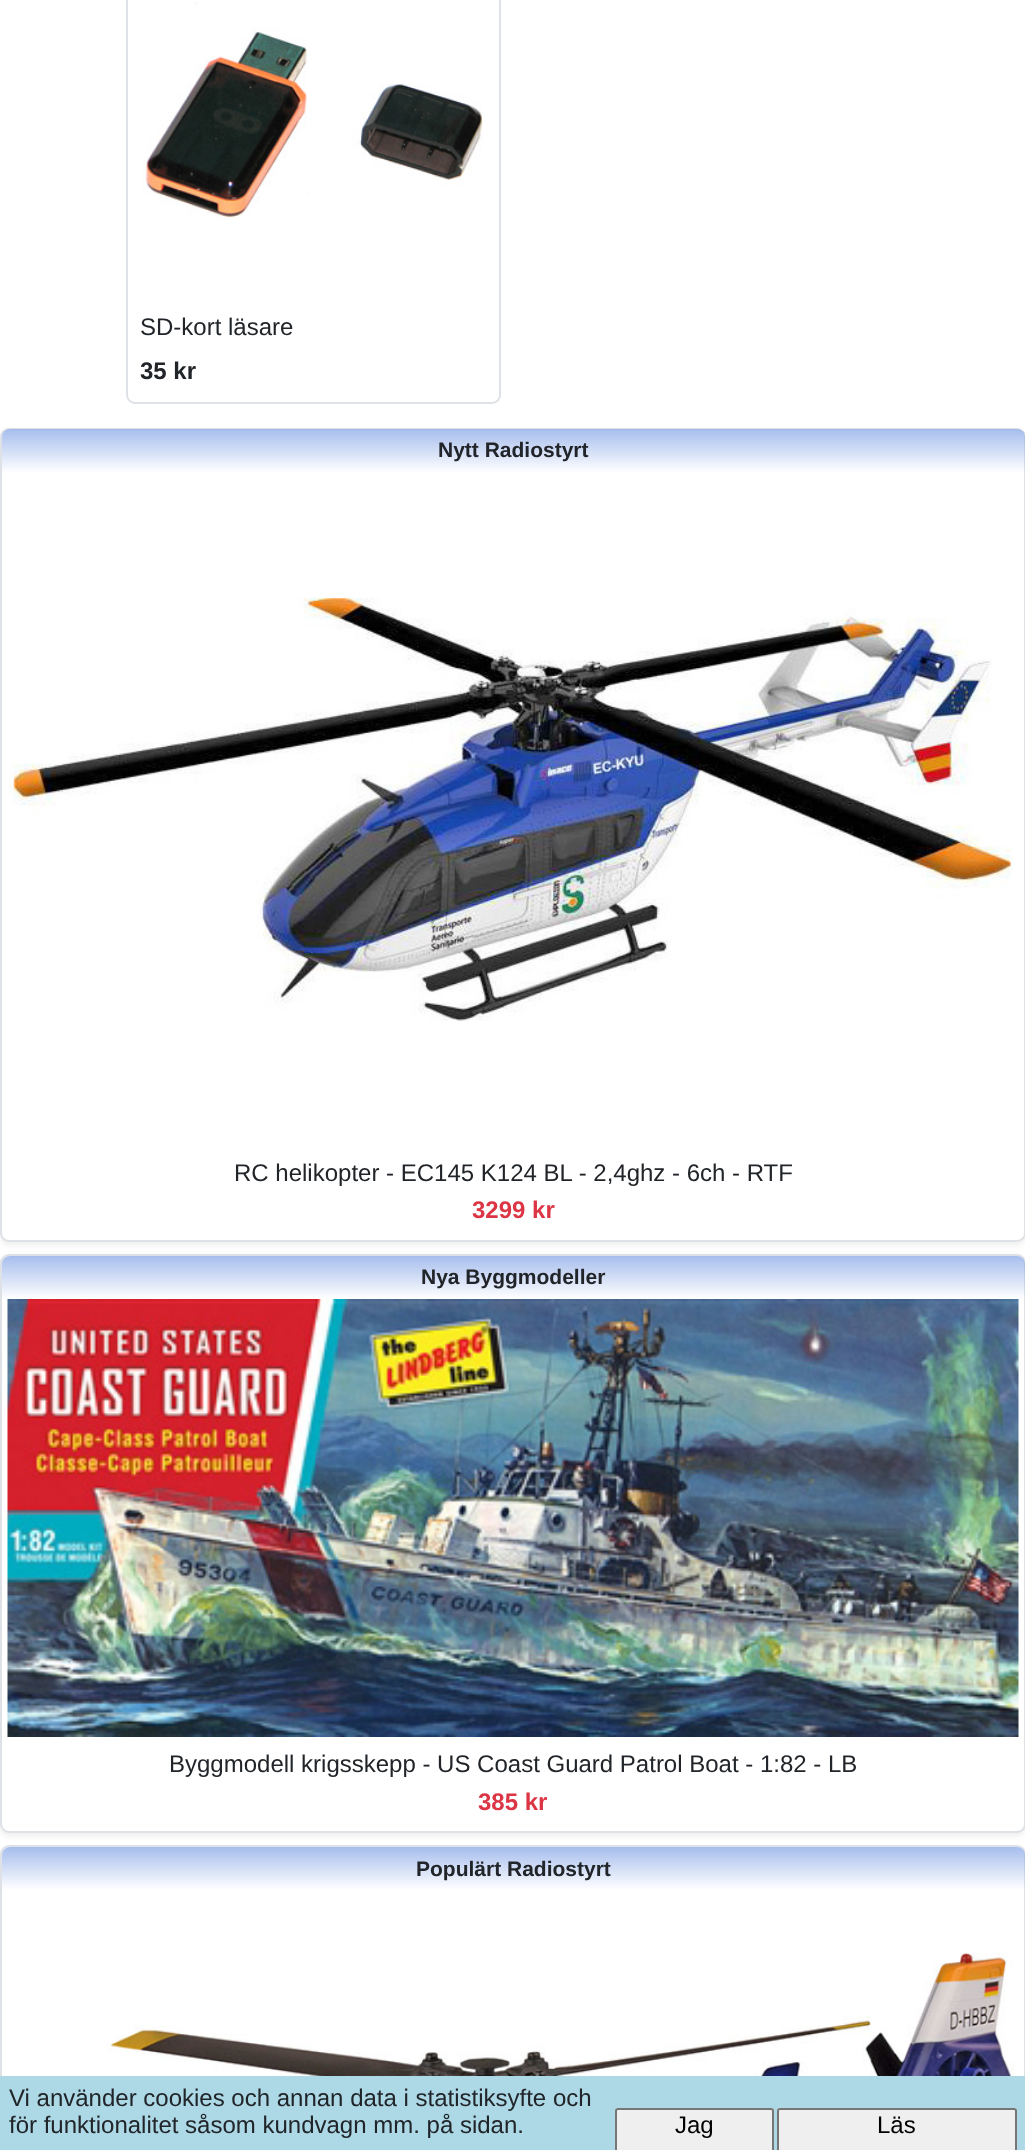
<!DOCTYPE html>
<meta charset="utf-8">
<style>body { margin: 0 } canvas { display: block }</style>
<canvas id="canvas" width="1025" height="2150"></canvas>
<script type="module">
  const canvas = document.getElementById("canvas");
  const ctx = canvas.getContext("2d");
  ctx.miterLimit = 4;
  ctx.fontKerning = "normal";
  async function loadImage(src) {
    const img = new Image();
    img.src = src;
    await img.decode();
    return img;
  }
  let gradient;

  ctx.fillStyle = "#ffffff";
  ctx.fillRect(0, 0, 1025, 2150);
  ctx.beginPath();
  ctx.roundRect(127, -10, 373, 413, 8);
  ctx.strokeStyle = "#dee2e6";
  ctx.lineWidth = 2;
  ctx.stroke();
  ctx.drawImage(await loadImage("img1.png"), 142, 2, 341, 218);
  ctx.font = "24px Liberation Sans";
  ctx.fillStyle = "#212529";
  ctx.fillText("SD-kort läsare", 140, 335);
  ctx.font = "bold 24px Liberation Sans";
  ctx.fillText("35 kr", 140, 379);
  ctx.fillStyle = "rgba(0, 0, 0, 0.07)";
  ctx.filter = "blur(3px)";
  ctx.beginPath();
  ctx.roundRect(0, 431, 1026, 814, 9);
  ctx.fill();
  ctx.filter = "none";
  ctx.fillStyle = "#ffffff";
  ctx.beginPath();
  ctx.roundRect(1, 429, 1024, 812, 8);
  ctx.fill();
  ctx.stroke();
  gradient = ctx.createLinearGradient(513, 429, 513, 473);
  gradient.addColorStop(0, "rgba(144, 173, 233, 0.8)");
  gradient.addColorStop(1, "rgba(144, 173, 233, 0)");
  ctx.fillStyle = gradient;
  ctx.beginPath();
  ctx.roundRect(2, 429, 1023, 44, [8, 8, 0, 0]);
  ctx.fill();
  ctx.font = "bold 21px Liberation Sans";
  ctx.fillStyle = "#212529";
  ctx.fillText("Nytt Radiostyrt", 438, 457);
  ctx.drawImage(await loadImage("img2.png"), 9, 597, 1004, 424);
  ctx.font = "24px Liberation Sans";
  ctx.fillText("RC helikopter - EC145 K124 BL - 2,4ghz - 6ch - RTF", 234, 1181);
  ctx.font = "bold 24px Liberation Sans";
  ctx.fillStyle = "#dc3545";
  ctx.fillText("3299 kr", 472, 1218);
  ctx.fillStyle = "rgba(0, 0, 0, 0.07)";
  ctx.filter = "blur(3px)";
  ctx.beginPath();
  ctx.roundRect(0, 1257, 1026, 579, 9);
  ctx.fill();
  ctx.filter = "none";
  ctx.fillStyle = "#ffffff";
  ctx.beginPath();
  ctx.roundRect(1, 1255, 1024, 577, 8);
  ctx.fill();
  ctx.stroke();
  gradient = ctx.createLinearGradient(513, 1256, 513, 1299);
  gradient.addColorStop(0, "rgba(144, 173, 233, 0.8)");
  gradient.addColorStop(1, "rgba(144, 173, 233, 0)");
  ctx.fillStyle = gradient;
  ctx.beginPath();
  ctx.roundRect(2, 1256, 1023, 43, [8, 8, 0, 0]);
  ctx.fill();
  ctx.font = "bold 21px Liberation Sans";
  ctx.fillStyle = "#212529";
  ctx.fillText("Nya Byggmodeller", 421, 1284);
  ctx.drawImage(await loadImage("img3.png"), 7, 1299, 1012, 438);
  ctx.font = "24px Liberation Sans";
  ctx.fillText("Byggmodell krigsskepp - US Coast Guard Patrol Boat - 1:82 - LB", 169, 1772);
  ctx.font = "bold 24px Liberation Sans";
  ctx.fillStyle = "#dc3545";
  ctx.fillText("385 kr", 478, 1810);
  ctx.beginPath();
  ctx.roundRect(1, 1846, 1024, 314, 8);
  ctx.stroke();
  gradient = ctx.createLinearGradient(513, 1847, 513, 1890);
  gradient.addColorStop(0, "rgba(144, 173, 233, 0.8)");
  gradient.addColorStop(1, "rgba(144, 173, 233, 0)");
  ctx.fillStyle = gradient;
  ctx.beginPath();
  ctx.roundRect(2, 1847, 1023, 43, [8, 8, 0, 0]);
  ctx.fill();
  ctx.font = "bold 21px Liberation Sans";
  ctx.fillStyle = "#212529";
  ctx.fillText("Populärt Radiostyrt", 416, 1876);
  ctx.drawImage(await loadImage("img4.png"), 104, 1953, 910, 123);
  ctx.fillStyle = "#add8e6";
  ctx.fillRect(0, 2076, 1025, 74);
  ctx.font = "24px Liberation Sans";
  ctx.fillStyle = "#212529";
  ctx.fillText("Vi använder cookies och annan data i statistiksyfte och", 9, 2106);
  ctx.fillText("för funktionalitet såsom kundvagn mm. på sidan.", 9, 2133);
  ctx.fillStyle = "#efefef";
  ctx.beginPath();
  ctx.moveTo(618, 2108);
  ctx.lineTo(771, 2108);
  ctx.bezierCurveTo(772.5, 2108, 774, 2109.5, 774, 2111);
  ctx.lineTo(774, 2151);
  ctx.lineTo(615, 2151);
  ctx.lineTo(615, 2111);
  ctx.bezierCurveTo(615, 2109.5, 616.5, 2108, 618, 2108);
  ctx.closePath();
  ctx.fill();
  ctx.beginPath();
  ctx.roundRect(616, 2109, 157, 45, 2);
  ctx.strokeStyle = "#767676";
  ctx.stroke();
  ctx.fillStyle = "#000000";
  ctx.fillText("Jag", 675, 2133);
  ctx.fillStyle = "#efefef";
  ctx.beginPath();
  ctx.moveTo(780, 2108);
  ctx.lineTo(1014, 2108);
  ctx.bezierCurveTo(1015.5, 2108, 1017, 2109.5, 1017, 2111);
  ctx.lineTo(1017, 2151);
  ctx.lineTo(777, 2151);
  ctx.lineTo(777, 2111);
  ctx.bezierCurveTo(777, 2109.5, 778.5, 2108, 780, 2108);
  ctx.closePath();
  ctx.fill();
  ctx.beginPath();
  ctx.roundRect(778, 2109, 238, 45, 2);
  ctx.stroke();
  ctx.fillStyle = "#000000";
  ctx.fillText("Läs", 877, 2133);
</script>
